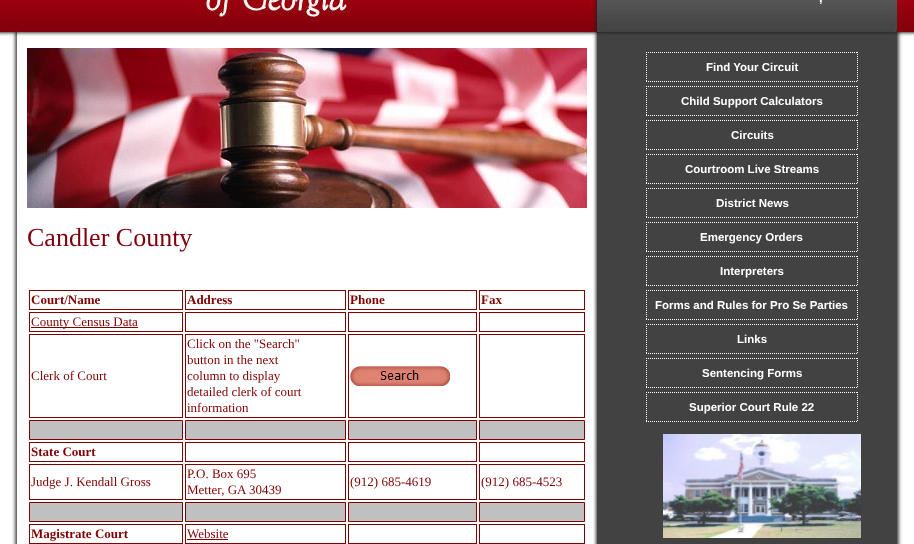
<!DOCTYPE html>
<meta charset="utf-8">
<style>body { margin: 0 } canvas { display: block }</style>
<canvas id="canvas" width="914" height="544"></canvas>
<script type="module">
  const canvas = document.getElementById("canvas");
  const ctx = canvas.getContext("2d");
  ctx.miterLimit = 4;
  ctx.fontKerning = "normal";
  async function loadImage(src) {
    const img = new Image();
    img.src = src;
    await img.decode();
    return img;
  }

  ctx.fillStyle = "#ffffff";
  ctx.fillRect(0, 0, 914, 544);
  ctx.drawImage(await loadImage("img1.png"), 0, 0, 914, 36);
  ctx.drawImage(await loadImage("img2.png"), 7, 38, 900, 506);
  ctx.drawImage(await loadImage("img3.png"), 7, 0, 900, 38);
  ctx.font = "bold 13px Liberation Sans";
  ctx.fillText(",", 819, 2);
  ctx.drawImage(await loadImage("img4.png"), 27, 48, 560, 160);
  ctx.font = "26px Liberation Serif";
  ctx.fillStyle = "#7f000b";
  ctx.fillText("Candler County", 27, 246);
  ctx.strokeStyle = "#800000";
  ctx.strokeRect(29.5, 290.5, 153, 19);
  ctx.font = "bold 13px Liberation Serif";
  ctx.fillStyle = "#800000";
  ctx.fillText("Court/Name", 31, 304);
  ctx.strokeRect(185.5, 290.5, 160, 19);
  ctx.fillText("Address", 187, 304);
  ctx.strokeRect(348.5, 290.5, 128, 19);
  ctx.fillText("Phone", 350, 304);
  ctx.strokeRect(479.5, 290.5, 105, 19);
  ctx.fillText("Fax", 481, 304);
  ctx.strokeRect(29.5, 312.5, 153, 19);
  ctx.fillRect(31, 327, 107, 1);
  ctx.font = "13px Liberation Serif";
  ctx.fillText("County Census Data", 31, 326);
  ctx.strokeRect(185.5, 312.5, 160, 19);
  ctx.strokeRect(348.5, 312.5, 128, 19);
  ctx.strokeRect(479.5, 312.5, 105, 19);
  ctx.strokeRect(29.5, 334.5, 153, 83);
  ctx.fillText("Clerk of Court", 31, 380);
  ctx.strokeRect(185.5, 334.5, 160, 83);
  ctx.fillText("Click on the \"Search\"", 187, 348);
  ctx.fillText("button in the next", 187, 364);
  ctx.fillText("column to display", 187, 380);
  ctx.fillText("detailed clerk of court", 187, 396);
  ctx.fillText("information", 187, 412);
  ctx.strokeRect(348.5, 334.5, 128, 83);
  ctx.drawImage(await loadImage("img5.png"), 350, 366, 100, 20);
  ctx.strokeRect(479.5, 334.5, 105, 83);
  ctx.fillStyle = "#c0c0c0";
  ctx.beginPath();
  ctx.rect(29.5, 420.5, 153, 19);
  ctx.fill();
  ctx.stroke();
  ctx.beginPath();
  ctx.rect(185.5, 420.5, 160, 19);
  ctx.fill();
  ctx.stroke();
  ctx.beginPath();
  ctx.rect(348.5, 420.5, 128, 19);
  ctx.fill();
  ctx.stroke();
  ctx.beginPath();
  ctx.rect(479.5, 420.5, 105, 19);
  ctx.fill();
  ctx.stroke();
  ctx.strokeRect(29.5, 442.5, 153, 19);
  ctx.font = "bold 13px Liberation Serif";
  ctx.fillStyle = "#800000";
  ctx.fillText("State Court", 31, 456);
  ctx.strokeRect(185.5, 442.5, 160, 19);
  ctx.strokeRect(348.5, 442.5, 128, 19);
  ctx.strokeRect(479.5, 442.5, 105, 19);
  ctx.strokeRect(29.5, 464.5, 153, 35);
  ctx.font = "13px Liberation Serif";
  ctx.fillText("Judge J. Kendall Gross", 31, 486);
  ctx.strokeRect(185.5, 464.5, 160, 35);
  ctx.fillText("P.O. Box 695", 187, 478);
  ctx.fillText("Metter, GA 30439", 187, 494);
  ctx.strokeRect(348.5, 464.5, 128, 35);
  ctx.fillText("(912) 685-4619", 350, 486);
  ctx.strokeRect(479.5, 464.5, 105, 35);
  ctx.fillText("(912) 685-4523", 481, 486);
  ctx.fillStyle = "#c0c0c0";
  ctx.beginPath();
  ctx.rect(29.5, 502.5, 153, 19);
  ctx.fill();
  ctx.stroke();
  ctx.beginPath();
  ctx.rect(185.5, 502.5, 160, 19);
  ctx.fill();
  ctx.stroke();
  ctx.beginPath();
  ctx.rect(348.5, 502.5, 128, 19);
  ctx.fill();
  ctx.stroke();
  ctx.beginPath();
  ctx.rect(479.5, 502.5, 105, 19);
  ctx.fill();
  ctx.stroke();
  ctx.strokeRect(29.5, 524.5, 153, 19);
  ctx.font = "bold 13px Liberation Serif";
  ctx.fillStyle = "#800000";
  ctx.fillText("Magistrate Court", 31, 538);
  ctx.strokeRect(185.5, 524.5, 160, 19);
  ctx.font = "13px Liberation Serif";
  ctx.fillStyle = "#7f000b";
  ctx.fillText("Website", 187, 538);
  ctx.fillRect(187, 539, 41, 1);
  ctx.strokeRect(348.5, 524.5, 128, 19);
  ctx.strokeRect(479.5, 524.5, 105, 19);
  ctx.beginPath();
  ctx.moveTo(646, 52.5);
  ctx.lineTo(858, 52.5);
  ctx.strokeStyle = "#ffffff";
  ctx.setLineDash([1, 1]);
  ctx.stroke();
  ctx.beginPath();
  ctx.moveTo(857.5, 52);
  ctx.lineTo(857.5, 82);
  ctx.stroke();
  ctx.beginPath();
  ctx.moveTo(646, 81.5);
  ctx.lineTo(858, 81.5);
  ctx.stroke();
  ctx.beginPath();
  ctx.moveTo(646.5, 52);
  ctx.lineTo(646.5, 82);
  ctx.stroke();
  ctx.font = "bold 11.5px Liberation Sans";
  ctx.fillStyle = "#ffffff";
  ctx.fillText("Find Your Circuit", 706, 71);
  ctx.beginPath();
  ctx.moveTo(646, 86.5);
  ctx.lineTo(858, 86.5);
  ctx.stroke();
  ctx.beginPath();
  ctx.moveTo(857.5, 86);
  ctx.lineTo(857.5, 116);
  ctx.stroke();
  ctx.beginPath();
  ctx.moveTo(646, 115.5);
  ctx.lineTo(858, 115.5);
  ctx.stroke();
  ctx.beginPath();
  ctx.moveTo(646.5, 86);
  ctx.lineTo(646.5, 116);
  ctx.stroke();
  ctx.fillText("Child Support Calculators", 681, 105);
  ctx.beginPath();
  ctx.moveTo(646, 120.5);
  ctx.lineTo(858, 120.5);
  ctx.stroke();
  ctx.beginPath();
  ctx.moveTo(857.5, 120);
  ctx.lineTo(857.5, 150);
  ctx.stroke();
  ctx.beginPath();
  ctx.moveTo(646, 149.5);
  ctx.lineTo(858, 149.5);
  ctx.stroke();
  ctx.beginPath();
  ctx.moveTo(646.5, 120);
  ctx.lineTo(646.5, 150);
  ctx.stroke();
  ctx.fillText("Circuits", 731, 139);
  ctx.beginPath();
  ctx.moveTo(646, 154.5);
  ctx.lineTo(858, 154.5);
  ctx.stroke();
  ctx.beginPath();
  ctx.moveTo(857.5, 154);
  ctx.lineTo(857.5, 184);
  ctx.stroke();
  ctx.beginPath();
  ctx.moveTo(646, 183.5);
  ctx.lineTo(858, 183.5);
  ctx.stroke();
  ctx.beginPath();
  ctx.moveTo(646.5, 154);
  ctx.lineTo(646.5, 184);
  ctx.stroke();
  ctx.fillText("Courtroom Live Streams", 685, 173);
  ctx.beginPath();
  ctx.moveTo(646, 188.5);
  ctx.lineTo(858, 188.5);
  ctx.stroke();
  ctx.beginPath();
  ctx.moveTo(857.5, 188);
  ctx.lineTo(857.5, 218);
  ctx.stroke();
  ctx.beginPath();
  ctx.moveTo(646, 217.5);
  ctx.lineTo(858, 217.5);
  ctx.stroke();
  ctx.beginPath();
  ctx.moveTo(646.5, 188);
  ctx.lineTo(646.5, 218);
  ctx.stroke();
  ctx.fillText("District News", 716, 207);
  ctx.beginPath();
  ctx.moveTo(646, 222.5);
  ctx.lineTo(858, 222.5);
  ctx.stroke();
  ctx.beginPath();
  ctx.moveTo(857.5, 222);
  ctx.lineTo(857.5, 252);
  ctx.stroke();
  ctx.beginPath();
  ctx.moveTo(646, 251.5);
  ctx.lineTo(858, 251.5);
  ctx.stroke();
  ctx.beginPath();
  ctx.moveTo(646.5, 222);
  ctx.lineTo(646.5, 252);
  ctx.stroke();
  ctx.fillText("Emergency Orders", 700, 241);
  ctx.beginPath();
  ctx.moveTo(646, 256.5);
  ctx.lineTo(858, 256.5);
  ctx.stroke();
  ctx.beginPath();
  ctx.moveTo(857.5, 256);
  ctx.lineTo(857.5, 286);
  ctx.stroke();
  ctx.beginPath();
  ctx.moveTo(646, 285.5);
  ctx.lineTo(858, 285.5);
  ctx.stroke();
  ctx.beginPath();
  ctx.moveTo(646.5, 256);
  ctx.lineTo(646.5, 286);
  ctx.stroke();
  ctx.fillText("Interpreters", 720, 275);
  ctx.beginPath();
  ctx.moveTo(646, 290.5);
  ctx.lineTo(858, 290.5);
  ctx.stroke();
  ctx.beginPath();
  ctx.moveTo(857.5, 290);
  ctx.lineTo(857.5, 320);
  ctx.stroke();
  ctx.beginPath();
  ctx.moveTo(646, 319.5);
  ctx.lineTo(858, 319.5);
  ctx.stroke();
  ctx.beginPath();
  ctx.moveTo(646.5, 290);
  ctx.lineTo(646.5, 320);
  ctx.stroke();
  ctx.fillText("Forms and Rules for Pro Se Parties", 655, 309);
  ctx.beginPath();
  ctx.moveTo(646, 324.5);
  ctx.lineTo(858, 324.5);
  ctx.stroke();
  ctx.beginPath();
  ctx.moveTo(857.5, 324);
  ctx.lineTo(857.5, 354);
  ctx.stroke();
  ctx.beginPath();
  ctx.moveTo(646, 353.5);
  ctx.lineTo(858, 353.5);
  ctx.stroke();
  ctx.beginPath();
  ctx.moveTo(646.5, 324);
  ctx.lineTo(646.5, 354);
  ctx.stroke();
  ctx.fillText("Links", 737, 343);
  ctx.beginPath();
  ctx.moveTo(646, 358.5);
  ctx.lineTo(858, 358.5);
  ctx.stroke();
  ctx.beginPath();
  ctx.moveTo(857.5, 358);
  ctx.lineTo(857.5, 388);
  ctx.stroke();
  ctx.beginPath();
  ctx.moveTo(646, 387.5);
  ctx.lineTo(858, 387.5);
  ctx.stroke();
  ctx.beginPath();
  ctx.moveTo(646.5, 358);
  ctx.lineTo(646.5, 388);
  ctx.stroke();
  ctx.fillText("Sentencing Forms", 702, 377);
  ctx.beginPath();
  ctx.moveTo(646, 392.5);
  ctx.lineTo(858, 392.5);
  ctx.stroke();
  ctx.beginPath();
  ctx.moveTo(857.5, 392);
  ctx.lineTo(857.5, 422);
  ctx.stroke();
  ctx.beginPath();
  ctx.moveTo(646, 421.5);
  ctx.lineTo(858, 421.5);
  ctx.stroke();
  ctx.beginPath();
  ctx.moveTo(646.5, 392);
  ctx.lineTo(646.5, 422);
  ctx.stroke();
  ctx.fillText("Superior Court Rule 22", 689, 411);
  ctx.drawImage(await loadImage("img6.png"), 663, 434, 198, 104);
</script>
